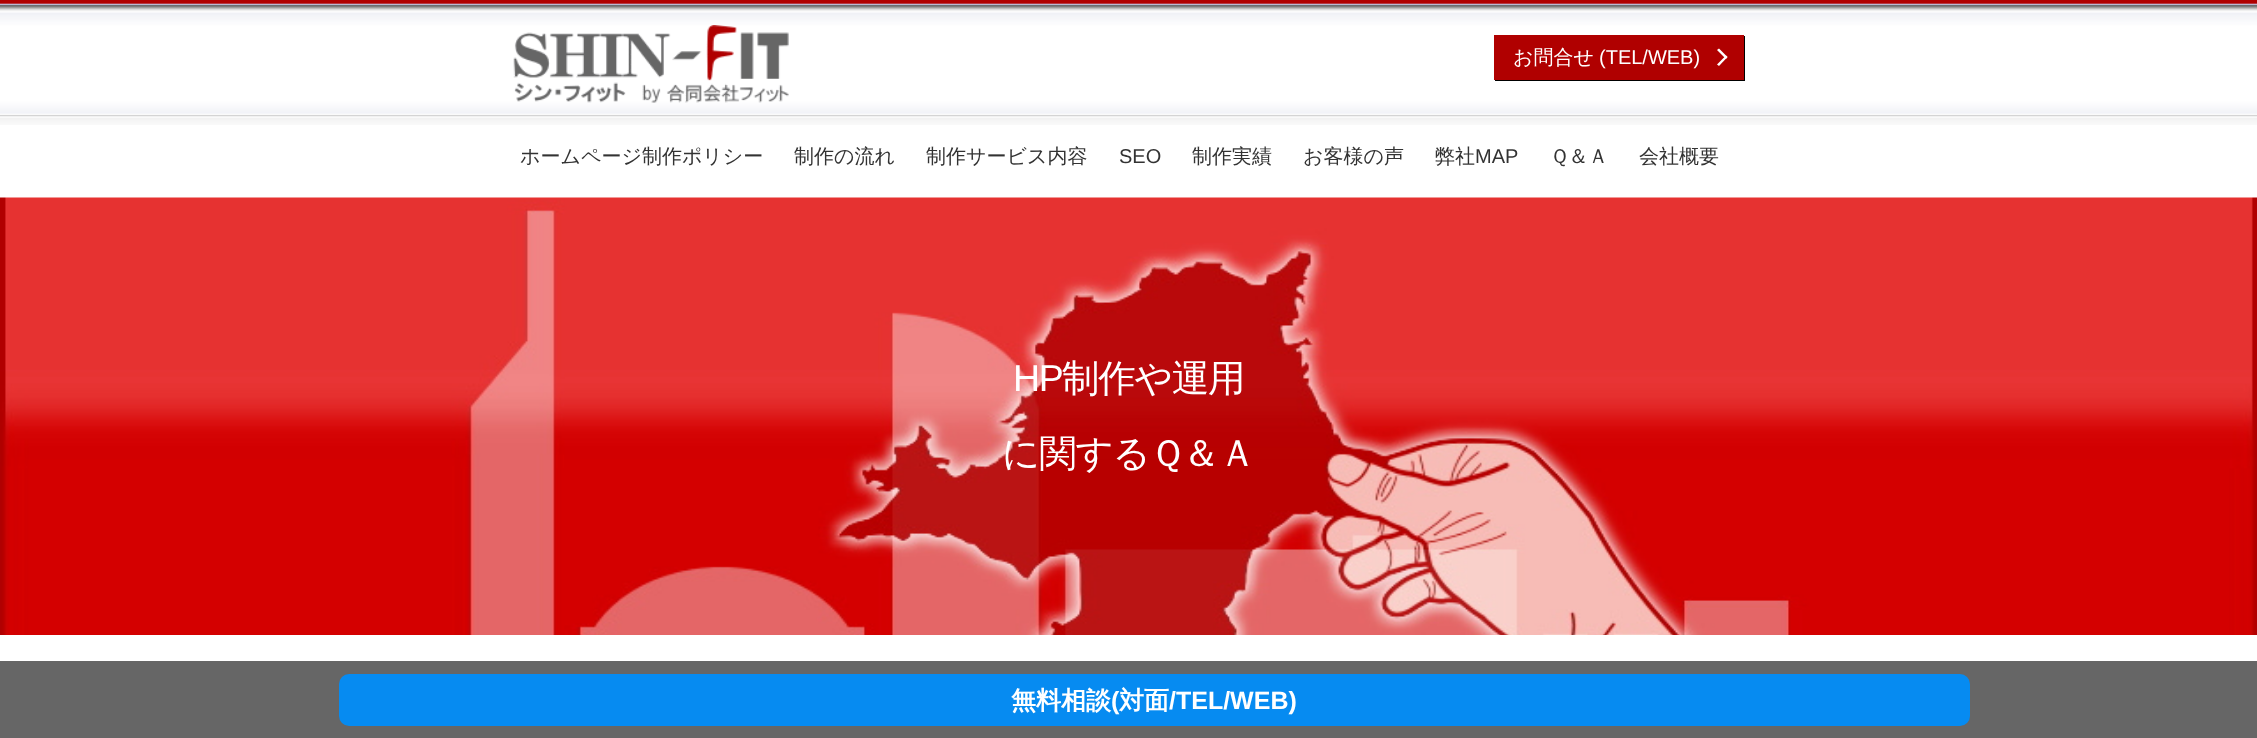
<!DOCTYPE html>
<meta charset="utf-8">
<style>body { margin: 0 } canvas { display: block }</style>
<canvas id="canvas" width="2257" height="738"></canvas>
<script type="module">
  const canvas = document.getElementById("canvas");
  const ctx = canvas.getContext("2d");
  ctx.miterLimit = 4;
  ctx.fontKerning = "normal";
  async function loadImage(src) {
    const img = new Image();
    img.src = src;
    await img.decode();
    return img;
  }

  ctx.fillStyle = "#ffffff";
  ctx.fillRect(0, 0, 2257, 738);
  ctx.fillStyle = "#666666";
  ctx.fillRect(0, 661, 2257, 77);
  ctx.drawImage(await loadImage("img1.png"), 0, 0, 2257, 125);
  ctx.drawImage(await loadImage("img2.png"), 513, 25, 276, 78);
  ctx.fillStyle = "#000000";
  ctx.beginPath();
  ctx.moveTo(1495, 80);
  ctx.lineTo(1495, 81);
  ctx.lineTo(1745, 81);
  ctx.lineTo(1745, 36);
  ctx.lineTo(1744, 36);
  ctx.lineTo(1744, 80);
  ctx.closePath();
  ctx.fill();
  ctx.fillStyle = "#b00000";
  ctx.fillRect(1494, 35, 250, 45);
  ctx.font = "500 20px WenQuanYi Zen Hei";
  ctx.fillStyle = "#ffffff";
  ctx.fillText("お問合せ", 1513, 64);
  ctx.font = "20px Liberation Sans";
  ctx.fillText("(TEL/WEB)", 1599, 64);
  ctx.beginPath();
  ctx.moveTo(1719, 48.5);
  ctx.lineTo(1727.5, 57);
  ctx.lineTo(1726, 59);
  ctx.lineTo(1717, 50);
  ctx.closePath();
  ctx.fill();
  ctx.beginPath();
  ctx.moveTo(1726, 55.5);
  ctx.lineTo(1727.5, 57);
  ctx.lineTo(1719, 66);
  ctx.lineTo(1717, 64.5);
  ctx.closePath();
  ctx.fill();
  ctx.font = "500 20px WenQuanYi Zen Hei";
  ctx.fillStyle = "#333333";
  ctx.fillText("ホームページ制作ポリシー", 520, 163);
  ctx.fillText("制作の流れ", 794, 163);
  ctx.fillText("制作サービス内容", 926, 163);
  ctx.font = "20px Liberation Sans";
  ctx.fillText("SEO", 1119, 163);
  ctx.font = "500 20px WenQuanYi Zen Hei";
  ctx.fillText("制作実績", 1192, 163);
  ctx.fillText("お客様の声", 1303, 163);
  ctx.fillText("弊社", 1435, 163);
  ctx.font = "20px Liberation Sans";
  ctx.fillText("MAP", 1475, 163);
  ctx.font = "500 20px WenQuanYi Zen Hei";
  ctx.fillText("Ｑ＆Ａ", 1550, 163);
  ctx.fillText("会社概要", 1639, 163);
  ctx.drawImage(await loadImage("img3.png"), 0, 197, 2257, 438);
  ctx.letterSpacing = "-1.25px";
  ctx.font = "37.5px Liberation Sans";
  ctx.fillStyle = "#ffffff";
  ctx.fillText("HP", 1013, 391);
  ctx.font = "500 37.5px WenQuanYi Zen Hei";
  ctx.fillText("制作や運用", 1062, 391);
  ctx.fillText("に関するＱ＆Ａ", 1002, 466);
  ctx.fillStyle = "#068bf1";
  ctx.beginPath();
  ctx.roundRect(339, 674, 1631, 52, 10);
  ctx.fill();
  ctx.letterSpacing = "0px";
  ctx.font = "bold 25px WenQuanYi Zen Hei";
  ctx.fillStyle = "#ffffff";
  ctx.fillText("無料相談", 1011, 709);
  ctx.font = "bold 25px Liberation Sans";
  ctx.fillText("(", 1111, 709);
  ctx.font = "bold 25px WenQuanYi Zen Hei";
  ctx.fillText("対面", 1119, 709);
  ctx.font = "bold 25px Liberation Sans";
  ctx.fillText("/TEL/WEB)", 1169, 709);
</script>
